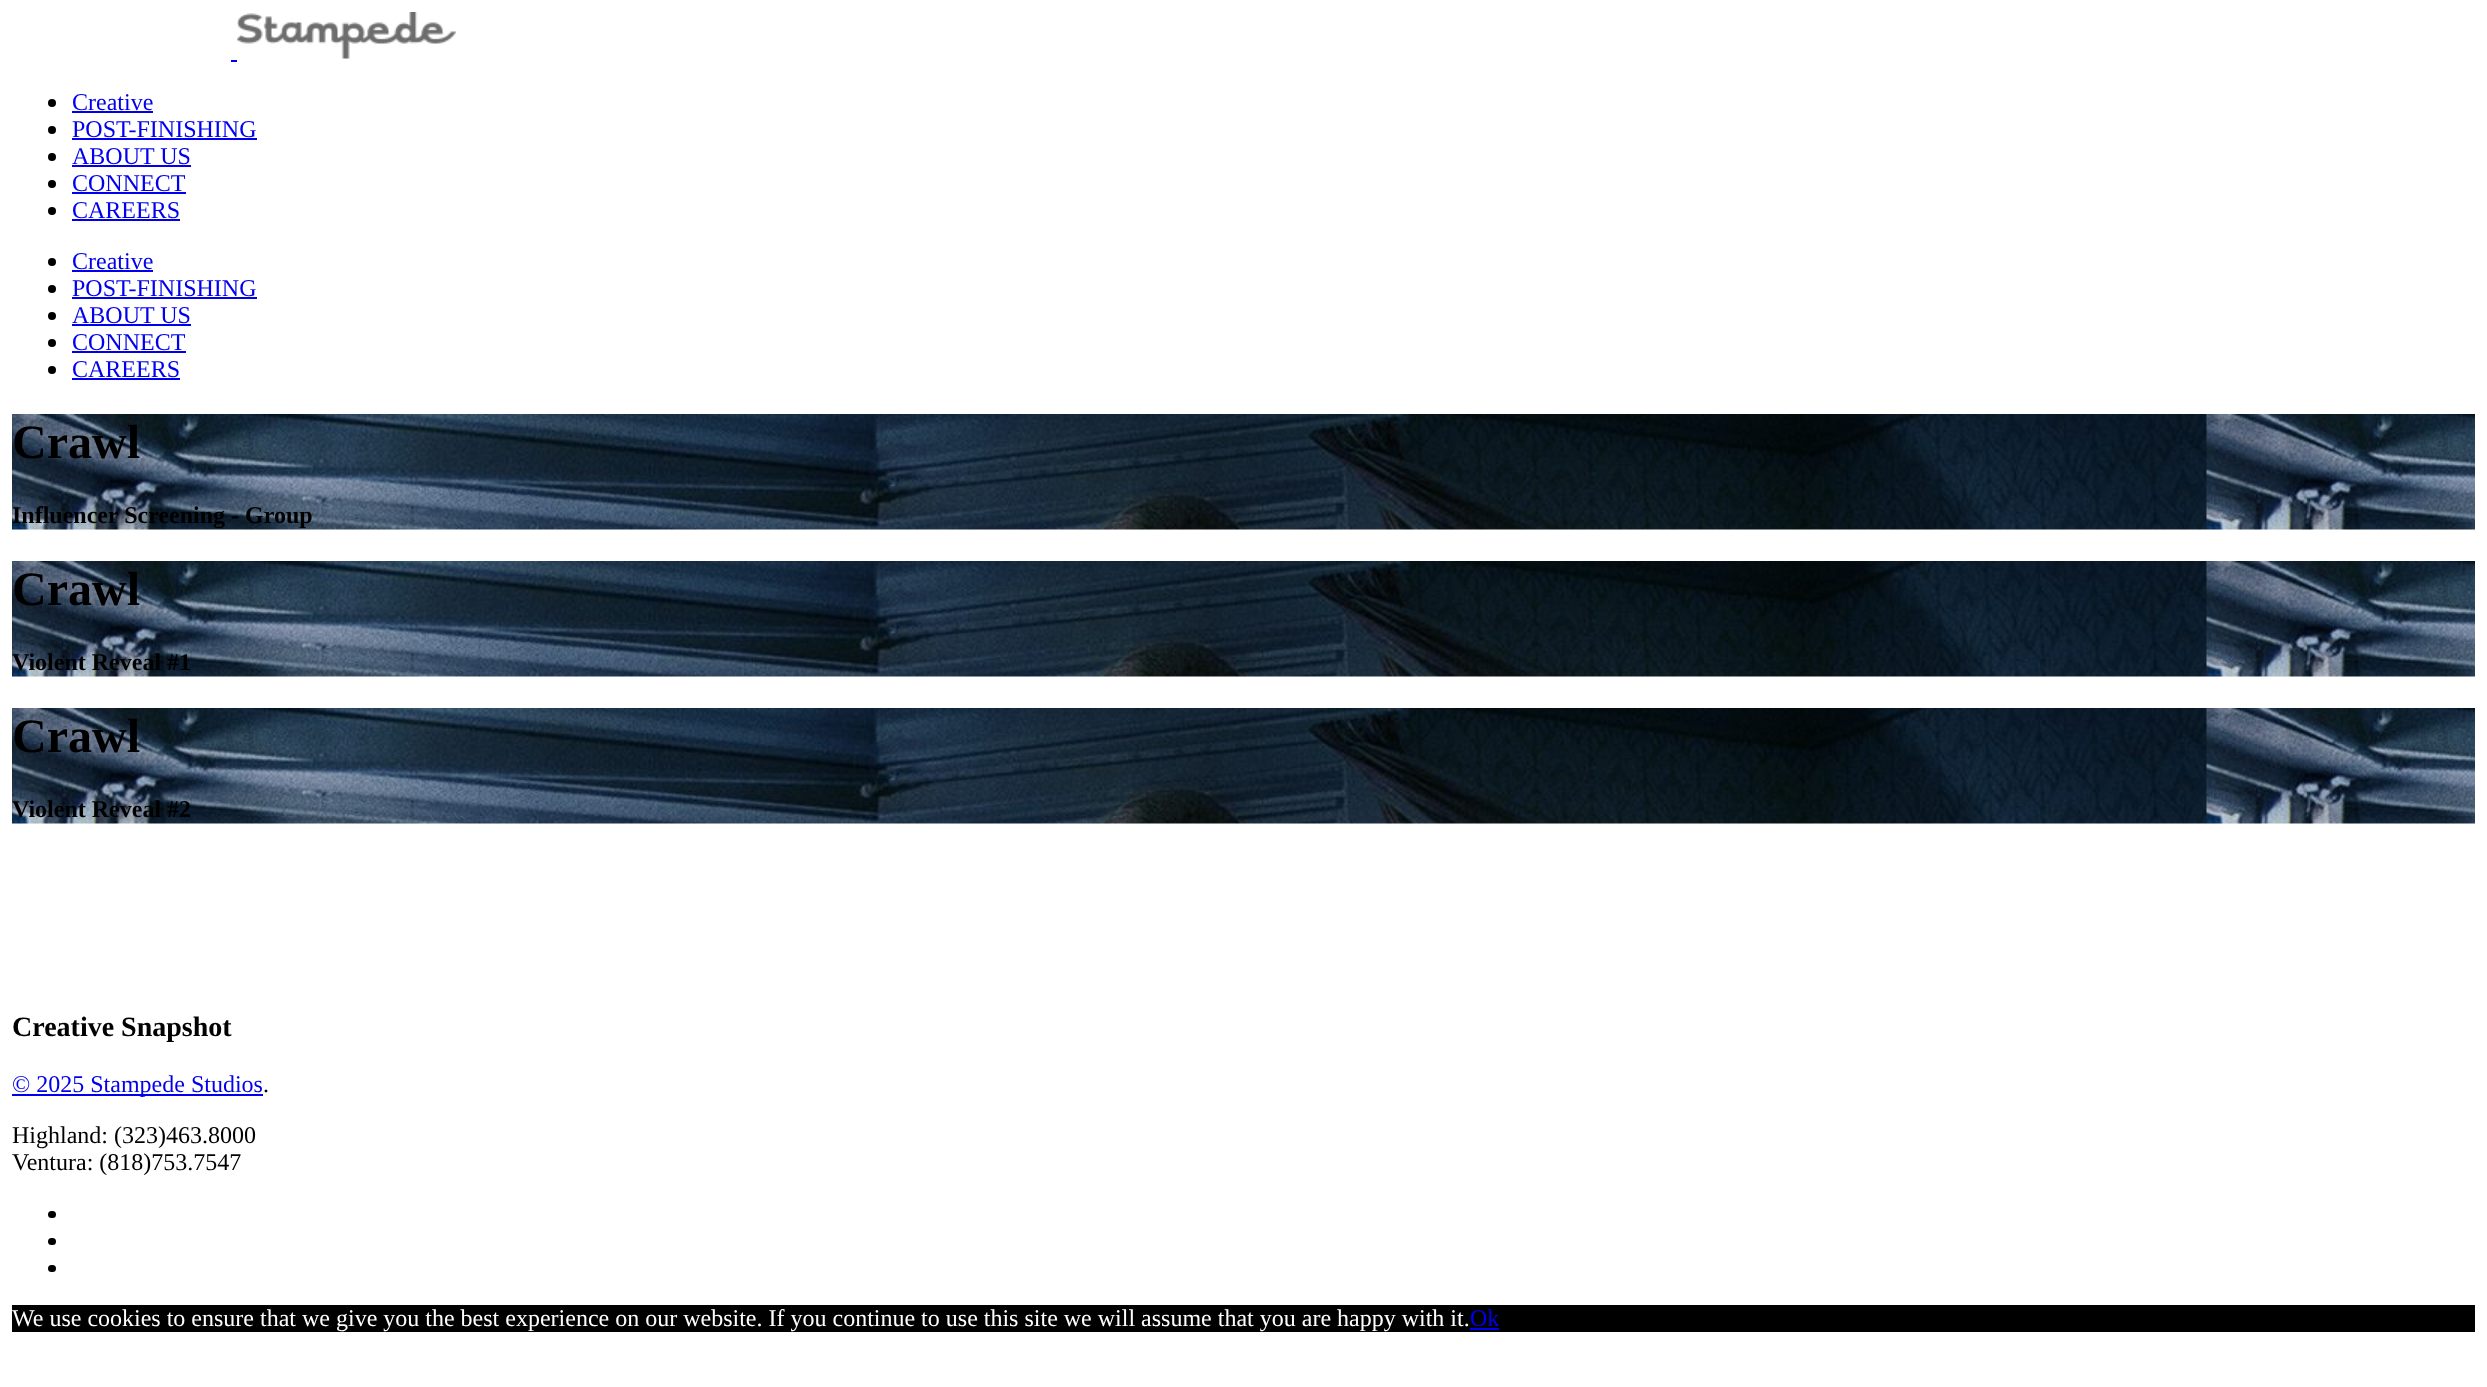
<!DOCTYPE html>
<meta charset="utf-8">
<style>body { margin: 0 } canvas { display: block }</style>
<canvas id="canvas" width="2487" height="1387"></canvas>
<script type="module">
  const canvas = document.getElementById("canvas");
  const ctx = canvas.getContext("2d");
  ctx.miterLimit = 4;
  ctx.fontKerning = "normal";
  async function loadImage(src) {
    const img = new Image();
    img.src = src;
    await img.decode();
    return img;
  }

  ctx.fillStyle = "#ffffff";
  ctx.fillRect(0, 0, 2487, 1387);
  ctx.drawImage(await loadImage("img1.png"), 237, 12, 219, 47);
  ctx.fillStyle = "#0000ee";
  ctx.fillRect(231, 60, 6, 2);
  ctx.fillStyle = "#000000";
  ctx.beginPath();
  ctx.arc(52, 103, 4, 0, Math.PI * 2);
  ctx.fill();
  ctx.font = "24px Liberation Serif";
  ctx.fillStyle = "#0000ee";
  ctx.fillText("Creative", 72, 110);
  ctx.fillRect(72, 111, 81, 2);
  ctx.fillStyle = "#000000";
  ctx.beginPath();
  ctx.arc(52, 130, 4, 0, Math.PI * 2);
  ctx.fill();
  ctx.fillStyle = "#0000ee";
  ctx.fillText("POST-FINISHING", 72, 137);
  ctx.fillRect(72, 138, 185, 2);
  ctx.fillStyle = "#000000";
  ctx.beginPath();
  ctx.arc(52, 157, 4, 0, Math.PI * 2);
  ctx.fill();
  ctx.fillStyle = "#0000ee";
  ctx.fillText("ABOUT US", 72, 164);
  ctx.fillRect(72, 165, 119, 2);
  ctx.fillStyle = "#000000";
  ctx.beginPath();
  ctx.arc(52, 184, 4, 0, Math.PI * 2);
  ctx.fill();
  ctx.fillStyle = "#0000ee";
  ctx.fillText("CONNECT", 72, 191);
  ctx.fillRect(72, 192, 114, 2);
  ctx.fillStyle = "#000000";
  ctx.beginPath();
  ctx.arc(52, 211, 4, 0, Math.PI * 2);
  ctx.fill();
  ctx.fillStyle = "#0000ee";
  ctx.fillText("CAREERS", 72, 218);
  ctx.fillRect(72, 219, 108, 2);
  ctx.fillStyle = "#000000";
  ctx.beginPath();
  ctx.arc(52, 262, 4, 0, Math.PI * 2);
  ctx.fill();
  ctx.fillStyle = "#0000ee";
  ctx.fillText("Creative", 72, 269);
  ctx.fillRect(72, 270, 81, 2);
  ctx.fillStyle = "#000000";
  ctx.beginPath();
  ctx.arc(52, 289, 4, 0, Math.PI * 2);
  ctx.fill();
  ctx.fillStyle = "#0000ee";
  ctx.fillText("POST-FINISHING", 72, 296);
  ctx.fillRect(72, 297, 185, 2);
  ctx.fillStyle = "#000000";
  ctx.beginPath();
  ctx.arc(52, 316, 4, 0, Math.PI * 2);
  ctx.fill();
  ctx.fillStyle = "#0000ee";
  ctx.fillText("ABOUT US", 72, 323);
  ctx.fillRect(72, 324, 119, 2);
  ctx.fillStyle = "#000000";
  ctx.beginPath();
  ctx.arc(52, 343, 4, 0, Math.PI * 2);
  ctx.fill();
  ctx.fillStyle = "#0000ee";
  ctx.fillText("CONNECT", 72, 350);
  ctx.fillRect(72, 351, 114, 2);
  ctx.fillStyle = "#000000";
  ctx.beginPath();
  ctx.arc(52, 370, 4, 0, Math.PI * 2);
  ctx.fill();
  ctx.fillStyle = "#0000ee";
  ctx.fillText("CAREERS", 72, 377);
  ctx.fillRect(72, 378, 108, 2);
  ctx.drawImage(await loadImage("img2.png"), 12, 414, 2463, 116);
  ctx.font = "bold 48px Liberation Serif";
  ctx.fillStyle = "#000000";
  ctx.fillText("Crawl", 12, 458);
  ctx.font = "bold 24px Liberation Serif";
  ctx.fillText("Influencer Screening - Group", 12, 523);
  ctx.drawImage(await loadImage("img3.png"), 12, 561, 2463, 116);
  ctx.font = "bold 48px Liberation Serif";
  ctx.fillText("Crawl", 12, 605);
  ctx.font = "bold 24px Liberation Serif";
  ctx.fillText("Violent Reveal #1", 12, 670);
  ctx.drawImage(await loadImage("img4.png"), 12, 708, 2463, 116);
  ctx.font = "bold 48px Liberation Serif";
  ctx.fillText("Crawl", 12, 752);
  ctx.font = "bold 24px Liberation Serif";
  ctx.fillText("Violent Reveal #2", 12, 817);
  ctx.font = "bold 28px Liberation Serif";
  ctx.fillText("Creative Snapshot", 12, 1036);
  ctx.fillStyle = "#0000ee";
  ctx.fillRect(12, 1094, 251, 2);
  ctx.font = "24px Liberation Serif";
  ctx.fillText("© 2025 Stampede Studios", 12, 1092);
  ctx.fillStyle = "#000000";
  ctx.fillText(".", 263, 1092);
  ctx.fillText("Highland: (323)463.8000", 12, 1143);
  ctx.fillText("Ventura: (818)753.7547", 12, 1170);
  ctx.beginPath();
  ctx.roundRect(48, 1211, 8, 7, 3.5);
  ctx.fill();
  ctx.beginPath();
  ctx.roundRect(48, 1238, 8, 7, 3.5);
  ctx.fill();
  ctx.beginPath();
  ctx.roundRect(48, 1265, 8, 7, 3.5);
  ctx.fill();
  ctx.fillRect(12, 1305, 2463, 27);
  ctx.fillStyle = "#ffffff";
  ctx.fillText("We use cookies to ensure that we give you the best experience on our website. If you continue to use this site we will assume that you are happy with it.", 12, 1326);
  ctx.fillStyle = "#0000ee";
  ctx.fillText("Ok", 1470, 1326);
  ctx.fillRect(1470, 1328, 29, 2);
</script>
